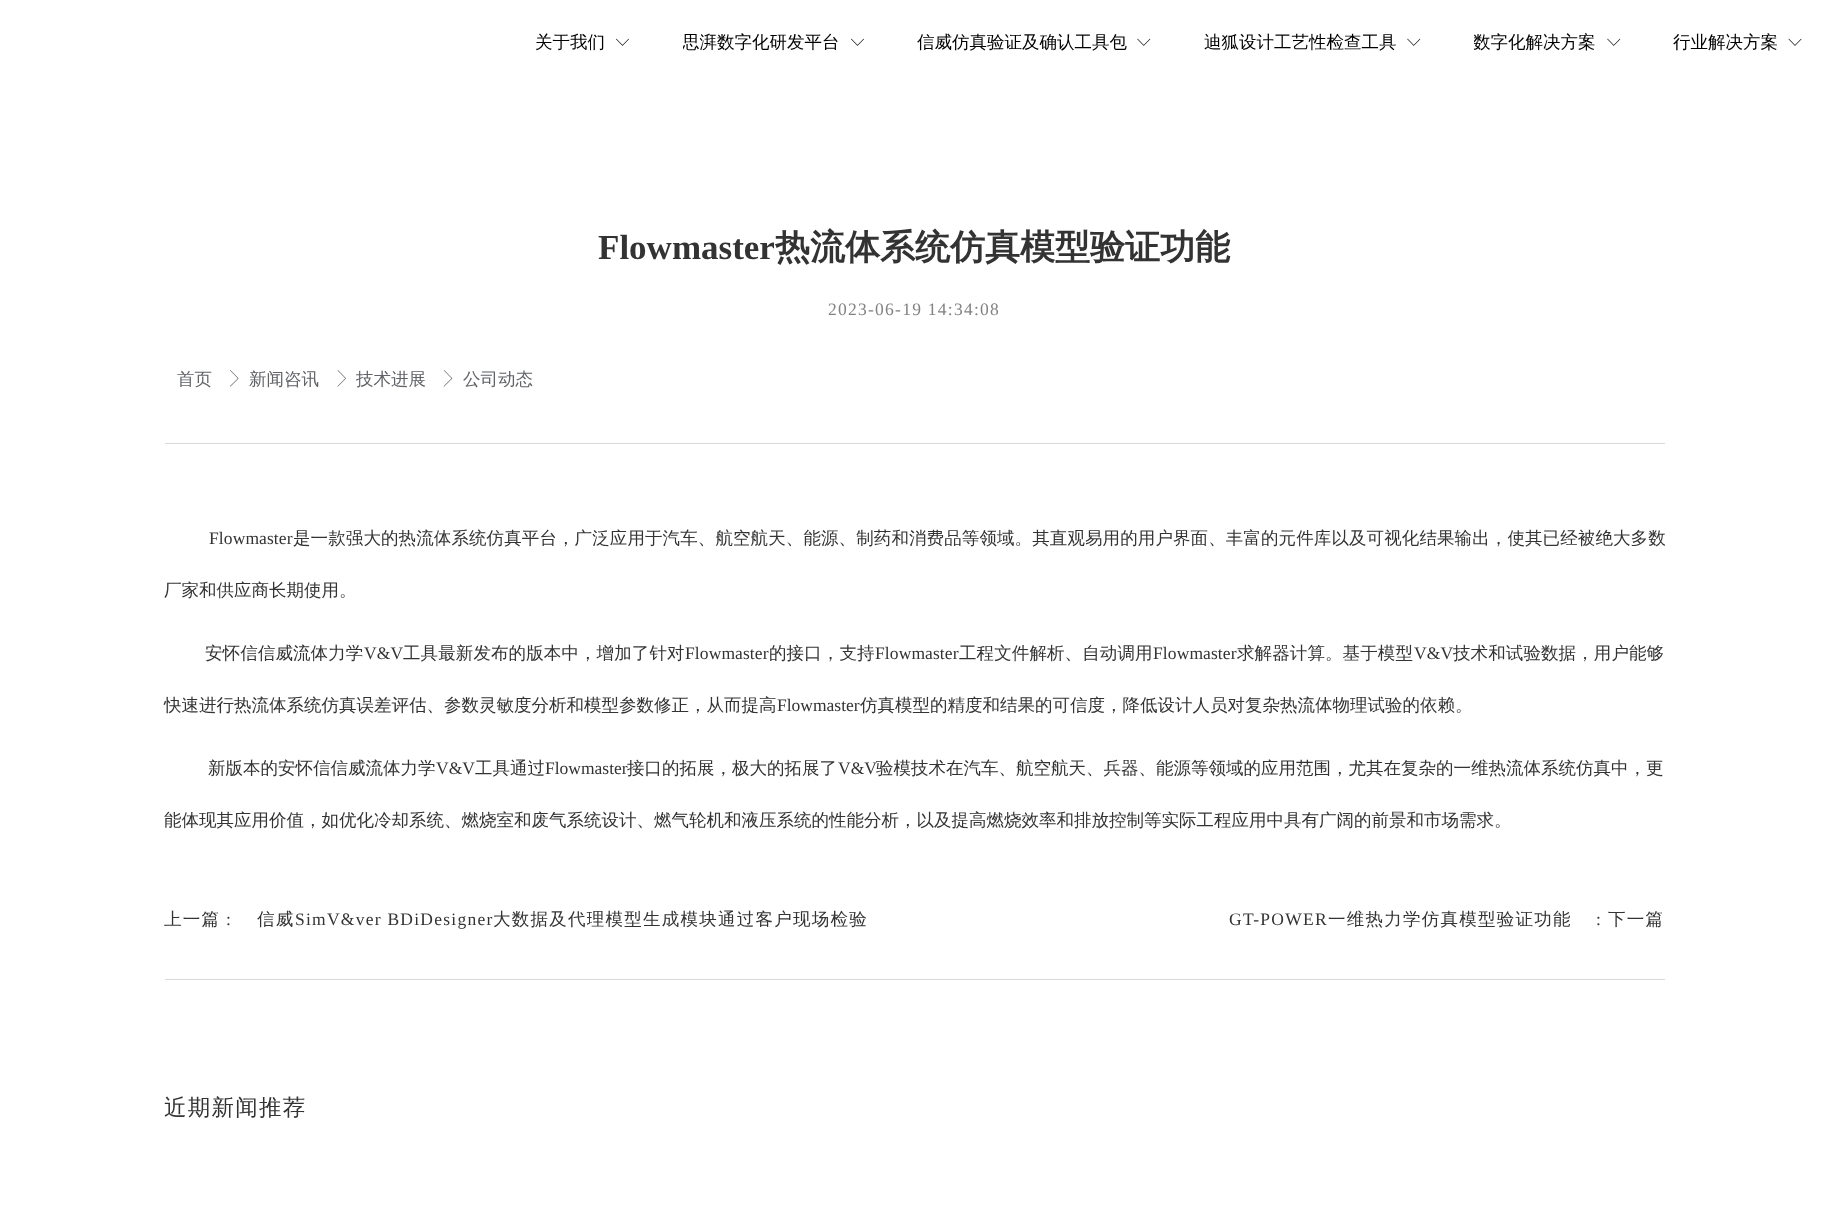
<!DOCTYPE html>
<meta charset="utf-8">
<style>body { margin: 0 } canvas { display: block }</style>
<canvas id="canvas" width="1828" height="1221"></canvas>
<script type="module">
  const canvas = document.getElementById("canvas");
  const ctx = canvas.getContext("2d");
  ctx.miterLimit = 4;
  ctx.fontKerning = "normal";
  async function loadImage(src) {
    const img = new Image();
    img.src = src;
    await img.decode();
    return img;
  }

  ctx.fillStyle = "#ffffff";
  ctx.fillRect(0, 0, 1828, 1221);
  ctx.font = "500 17.5px WenQuanYi Zen Hei";
  ctx.fillStyle = "#000000";
  ctx.fillText("关于我们", 535, 48);
  ctx.drawImage(await loadImage("img1.png"), 616, 38, 13, 8);
  ctx.save();
  ctx.beginPath();
  ctx.rect(683, 29, 157, 26);
  ctx.clip();
  ctx.fillText("思湃数字化研发平台", 682, 48);
  ctx.restore();
  ctx.drawImage(await loadImage("img1.png"), 851, 38, 13, 8);
  ctx.fillText("信威仿真验证及确认工具包", 917, 48);
  ctx.drawImage(await loadImage("img2.png"), 1137, 38, 14, 8);
  ctx.fillText("迪狐设计工艺性检查工具", 1204, 48);
  ctx.drawImage(await loadImage("img2.png"), 1407, 38, 14, 8);
  ctx.save();
  ctx.beginPath();
  ctx.rect(1474, 29, 122, 26);
  ctx.clip();
  ctx.fillText("数字化解决方案", 1473, 48);
  ctx.restore();
  ctx.drawImage(await loadImage("img2.png"), 1607, 38, 14, 8);
  ctx.fillText("行业解决方案", 1673, 48);
  ctx.drawImage(await loadImage("img3.png"), 1788, 38, 14, 8);
  ctx.font = "bold 35px Liberation Serif";
  ctx.fillStyle = "#333333";
  ctx.fillText("Flowmaster", 598, 259);
  ctx.font = "bold 35px WenQuanYi Zen Hei";
  ctx.fillText("热流体系统仿真模型验证功能", 775, 259);
  ctx.letterSpacing = "1.25px";
  ctx.font = "17.5px Liberation Serif";
  ctx.fillStyle = "#828282";
  ctx.fillText("2023-06-19 14:34:08", 828, 315);
  ctx.letterSpacing = "0px";
  ctx.font = "500 17.5px WenQuanYi Zen Hei";
  ctx.fillStyle = "#606266";
  ctx.fillText("首页", 177, 385);
  ctx.drawImage(await loadImage("img4.png"), 230, 370, 9, 17);
  ctx.fillText("新闻咨讯", 249, 385);
  ctx.drawImage(await loadImage("img5.png"), 337, 370, 9, 17);
  ctx.fillText("技术进展", 356, 385);
  ctx.drawImage(await loadImage("img6.png"), 443, 370, 10, 17);
  ctx.fillText("公司动态", 463, 385);
  ctx.fillStyle = "#d9d9d9";
  ctx.fillRect(165, 443, 1500, 1);
  ctx.letterSpacing = "0.1px";
  ctx.font = "17.5px Liberation Serif";
  ctx.fillStyle = "#333333";
  ctx.fillText("Flowmaster", 209, 544);
  ctx.font = "500 17.5px WenQuanYi Zen Hei";
  ctx.fillText("是一款强大的热流体系统仿真平台，广泛应用于汽车、航空航天、能源、制药和消费品等领域。其直观易用的用户界面、丰富的元件库以及可视化结果输出，使其已经被绝大多数", 293, 544);
  ctx.letterSpacing = "0px";
  ctx.fillText("厂家和供应商长期使用。", 164, 596);
  ctx.letterSpacing = "0.1px";
  ctx.fillText("安怀信信威流体力学", 205, 659);
  ctx.font = "17.5px Liberation Serif";
  ctx.fillText("V&V", 364, 659);
  ctx.font = "500 17.5px WenQuanYi Zen Hei";
  ctx.fillText("工具最新发布的版本中，增加了针对", 403, 659);
  ctx.font = "17.5px Liberation Serif";
  ctx.fillText("Flowmaster", 685, 659);
  ctx.font = "500 17.5px WenQuanYi Zen Hei";
  ctx.fillText("的接口，支持", 769, 659);
  ctx.font = "17.5px Liberation Serif";
  ctx.fillText("Flowmaster", 875, 659);
  ctx.font = "500 17.5px WenQuanYi Zen Hei";
  ctx.fillText("工程文件解析、自动调用", 959, 659);
  ctx.font = "17.5px Liberation Serif";
  ctx.fillText("Flowmaster", 1153, 659);
  ctx.font = "500 17.5px WenQuanYi Zen Hei";
  ctx.fillText("求解器计算。基于模型", 1237, 659);
  ctx.font = "17.5px Liberation Serif";
  ctx.fillText("V&V", 1414, 659);
  ctx.font = "500 17.5px WenQuanYi Zen Hei";
  ctx.fillText("技术和试验数据，用户能够", 1453, 659);
  ctx.letterSpacing = "0px";
  ctx.fillText("快速进行热流体系统仿真误差评估、参数灵敏度分析和模型参数修正，从而提高", 164, 711);
  ctx.font = "17.5px Liberation Serif";
  ctx.fillText("Flowmaster", 777, 711);
  ctx.font = "500 17.5px WenQuanYi Zen Hei";
  ctx.fillText("仿真模型的精度和结果的可信度，降低设计人员对复杂热流体物理试验的依赖。", 860, 711);
  ctx.fillText("新版本的安怀信信威流体力学", 208, 774);
  ctx.font = "17.5px Liberation Serif";
  ctx.fillText("V&V", 436, 774);
  ctx.font = "500 17.5px WenQuanYi Zen Hei";
  ctx.fillText("工具通过", 475, 774);
  ctx.font = "17.5px Liberation Serif";
  ctx.fillText("Flowmaster", 545, 774);
  ctx.font = "500 17.5px WenQuanYi Zen Hei";
  ctx.fillText("接口的拓展，极大的拓展了", 627, 774);
  ctx.font = "17.5px Liberation Serif";
  ctx.fillText("V&V", 838, 774);
  ctx.font = "500 17.5px WenQuanYi Zen Hei";
  ctx.fillText("验模技术在汽车、航空航天、兵器、能源等领域的应用范围，尤其在复杂的一维热流体系统仿真中，更", 876, 774);
  ctx.fillText("能体现其应用价值，如优化冷却系统、燃烧室和废气系统设计、燃气轮机和液压系统的性能分析，以及提高燃烧效率和排放控制等实际工程应用中具有广阔的前景和市场需求。", 164, 826);
  ctx.letterSpacing = "1.25px";
  ctx.fillText("上一篇", 164, 925);
  ctx.font = "17.5px Liberation Serif";
  ctx.fillText(":", 226, 925);
  ctx.font = "500 17.5px WenQuanYi Zen Hei";
  ctx.fillText("信威", 257, 925);
  ctx.font = "17.5px Liberation Serif";
  ctx.fillText("SimV&ver BDiDesigner", 295, 925);
  ctx.font = "500 17.5px WenQuanYi Zen Hei";
  ctx.fillText("大数据及代理模型生成模块通过客户现场检验", 493, 925);
  ctx.font = "17.5px Liberation Serif";
  ctx.fillText("GT-POWER", 1229, 925);
  ctx.font = "500 17.5px WenQuanYi Zen Hei";
  ctx.fillText("一维热力学仿真模型验证功能", 1328, 925);
  ctx.font = "17.5px Liberation Serif";
  ctx.fillText(":", 1596, 925);
  ctx.font = "500 17.5px WenQuanYi Zen Hei";
  ctx.fillText("下一篇", 1608, 925);
  ctx.fillStyle = "#d9d9d9";
  ctx.fillRect(165, 979, 1500, 1);
  ctx.font = "500 22.5px WenQuanYi Zen Hei";
  ctx.fillStyle = "#333333";
  ctx.fillText("近期新闻推荐", 164, 1115);
</script>
